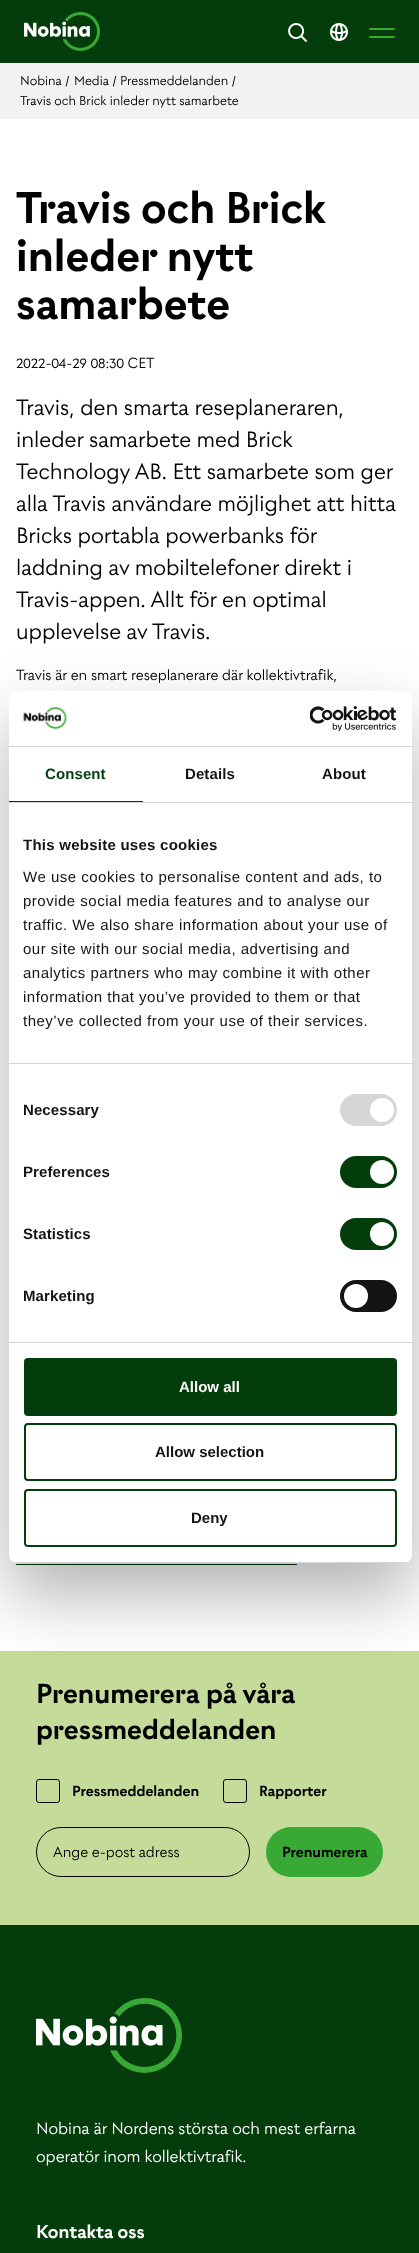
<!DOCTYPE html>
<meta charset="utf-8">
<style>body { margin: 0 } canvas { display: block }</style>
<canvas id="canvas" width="419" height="2253"></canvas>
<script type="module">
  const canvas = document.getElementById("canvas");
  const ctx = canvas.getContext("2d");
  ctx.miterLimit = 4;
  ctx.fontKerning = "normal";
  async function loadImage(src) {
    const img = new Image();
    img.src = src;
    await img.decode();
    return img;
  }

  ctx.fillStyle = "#ffffff";
  ctx.fillRect(0, 0, 419, 2253);
  ctx.fillStyle = "#043d0b";
  ctx.fillRect(0, 0, 419, 63);
  ctx.drawImage(await loadImage("img1.png"), 24, 12, 76, 39);
  ctx.drawImage(await loadImage("img2.png"), 288, 23, 19, 19);
  ctx.drawImage(await loadImage("img3.png"), 330, 23, 18, 18);
  ctx.fillStyle = "#39a935";
  ctx.beginPath();
  ctx.roundRect(369, 28, 26, 2, 1);
  ctx.fill();
  ctx.beginPath();
  ctx.roundRect(369, 36, 26, 2, 1);
  ctx.fill();
  ctx.fillStyle = "#f2f2f2";
  ctx.fillRect(0, 63, 419, 56);
  ctx.font = "14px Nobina";
  ctx.fillStyle = "#000000";
  ctx.fillText("Nobina /", 20, 85);
  ctx.fillText("Media /", 74, 85);
  ctx.fillText("Pressmeddelanden /", 120, 85);
  ctx.fillText("Travis och Brick inleder nytt samarbete", 20, 105);
  ctx.font = "900 48px Nobina";
  ctx.fillText("Travis och Brick", 16, 223);
  ctx.fillText("inleder nytt", 16, 271);
  ctx.fillText("samarbete", 16, 319);
  ctx.font = "16px Nobina";
  ctx.fillText("2022-04-29 08:30 CET", 16, 368);
  ctx.font = "24px Nobina";
  ctx.fillText("Travis, den smarta reseplaneraren,", 16, 415);
  ctx.fillText("inleder samarbete med Brick", 16, 447);
  ctx.fillText("Technology AB. Ett samarbete som ger", 16, 479);
  ctx.fillText("alla Travis användare möjlighet att hitta", 16, 511);
  ctx.fillText("Bricks portabla powerbanks för", 16, 543);
  ctx.fillText("laddning av mobiltelefoner direkt i", 16, 575);
  ctx.fillText("Travis-appen. Allt för en optimal", 16, 607);
  ctx.fillText("upplevelse av Travis.", 16, 639);
  ctx.font = "16px Nobina";
  ctx.fillText("Travis är en smart reseplanerare där kollektivtrafik,", 16, 680);
  ctx.fillStyle = "#043d0c";
  ctx.fillRect(16, 1564, 281, 1);
  ctx.fillStyle = "#c5db9a";
  ctx.fillRect(0, 1651, 419, 274);
  ctx.font = "900 30px Nobina";
  ctx.fillStyle = "#000000";
  ctx.fillText("Prenumerera på våra", 36, 1703);
  ctx.fillText("pressmeddelanden", 36, 1739);
  ctx.beginPath();
  ctx.roundRect(36.5, 1779.5, 23, 23, 2.5);
  ctx.strokeStyle = "#000000";
  ctx.stroke();
  ctx.font = "bold 16px Nobina";
  ctx.fillText("Pressmeddelanden", 72, 1796);
  ctx.beginPath();
  ctx.roundRect(223.5, 1779.5, 23, 23, 2.5);
  ctx.stroke();
  ctx.fillText("Rapporter", 259, 1796);
  ctx.beginPath();
  ctx.roundRect(36.5, 1827.5, 213, 49, 24.5);
  ctx.stroke();
  ctx.font = "16px Nobina";
  ctx.fillText("Ange e-post adress", 53, 1857);
  ctx.fillStyle = "#39a935";
  ctx.beginPath();
  ctx.roundRect(266, 1827, 117, 50, 25);
  ctx.fill();
  ctx.font = "bold 16px Nobina";
  ctx.fillStyle = "#000000";
  ctx.fillText("Prenumerera", 282, 1857);
  ctx.fillStyle = "#043d0b";
  ctx.fillRect(0, 1925, 419, 328);
  ctx.drawImage(await loadImage("img4.png"), 36, 1998, 146, 75);
  ctx.font = "18px Nobina";
  ctx.fillStyle = "#ffffff";
  ctx.fillText("Nobina är Nordens största och mest erfarna", 36, 2134);
  ctx.fillText("operatör inom kollektivtrafik.", 36, 2162);
  ctx.font = "bold 20px Nobina";
  ctx.fillText("Kontakta oss", 36, 2238);
  ctx.fillStyle = "rgba(0, 0, 0, 0.3)";
  ctx.filter = "blur(34px)";
  ctx.beginPath();
  ctx.roundRect(9, 723, 403, 872, 8);
  ctx.fill();
  ctx.filter = "none";
  ctx.fillStyle = "#ffffff";
  ctx.beginPath();
  ctx.roundRect(9, 691, 403, 872, 8);
  ctx.fill();
  ctx.fillStyle = "#d6d6d6";
  ctx.fillRect(9, 746, 403, 1);
  ctx.drawImage(await loadImage("img5.png"), 23, 707, 44, 22);
  ctx.drawImage(await loadImage("img6.png"), 310, 706, 87, 25);
  ctx.fillRect(9, 802, 403, 1);
  ctx.fillStyle = "#043d0c";
  ctx.fillRect(9, 801, 134, 1);
  ctx.letterSpacing = "0.1px";
  ctx.font = "bold 15px Liberation Sans";
  ctx.fillText("Consent", 45, 779);
  ctx.fillStyle = "#141414";
  ctx.fillText("Details", 185, 779);
  ctx.fillText("About", 322, 779);
  ctx.fillStyle = "#d6d6d6";
  ctx.fillRect(9, 1063, 403, 1);
  ctx.letterSpacing = "0.25px";
  ctx.fillStyle = "#141414";
  ctx.fillText("This website uses cookies", 23, 850);
  ctx.letterSpacing = "0.5px";
  ctx.font = "15px Liberation Sans";
  ctx.fillText("We use cookies to personalise content and ads, to", 23, 882);
  ctx.fillText("provide social media features and to analyse our", 23, 906);
  ctx.fillText("traffic. We also share information about your use of", 23, 930);
  ctx.fillText("our site with our social media, advertising and", 23, 954);
  ctx.fillText("analytics partners who may combine it with other", 23, 978);
  ctx.fillText("information that you’ve provided to them or that", 23, 1002);
  ctx.fillText("they’ve collected from your use of their services.", 23, 1026);
  ctx.fillStyle = "#d6d6d6";
  ctx.fillRect(9, 1342, 403, 1);
  ctx.letterSpacing = "0.1px";
  ctx.font = "bold 15px Liberation Sans";
  ctx.fillStyle = "#141414";
  ctx.fillText("Necessary", 23, 1115);
  ctx.fillStyle = "#d6d6d6";
  ctx.beginPath();
  ctx.roundRect(340, 1094, 57, 32, 16);
  ctx.fill();
  ctx.fillStyle = "#ffffff";
  ctx.beginPath();
  ctx.arc(382, 1110, 12, 0, Math.PI * 2);
  ctx.fill();
  ctx.fillStyle = "#141414";
  ctx.fillText("Preferences", 23, 1177);
  ctx.fillStyle = "#043d0c";
  ctx.beginPath();
  ctx.roundRect(340, 1156, 57, 32, 16);
  ctx.fill();
  ctx.fillStyle = "#ffffff";
  ctx.beginPath();
  ctx.arc(382, 1172, 12, 0, Math.PI * 2);
  ctx.fill();
  ctx.fillStyle = "#141414";
  ctx.fillText("Statistics", 23, 1239);
  ctx.fillStyle = "#043d0c";
  ctx.beginPath();
  ctx.roundRect(340, 1218, 57, 32, 16);
  ctx.fill();
  ctx.fillStyle = "#ffffff";
  ctx.beginPath();
  ctx.arc(382, 1234, 12, 0, Math.PI * 2);
  ctx.fill();
  ctx.fillStyle = "#141414";
  ctx.fillText("Marketing", 23, 1301);
  ctx.beginPath();
  ctx.roundRect(340, 1280, 57, 32, 16);
  ctx.fill();
  ctx.fillStyle = "#ffffff";
  ctx.beginPath();
  ctx.arc(356, 1296, 12, 0, Math.PI * 2);
  ctx.fill();
  ctx.save();
  ctx.beginPath();
  ctx.roundRect(9, 691, 403, 872, 8);
  ctx.clip();
  ctx.fillStyle = "#d6d6d6";
  ctx.fillRect(9, 1562, 403, 1);
  ctx.restore();
  ctx.fillStyle = "#043d0c";
  ctx.beginPath();
  ctx.roundRect(25, 1359, 371, 56, 3);
  ctx.fill();
  ctx.strokeStyle = "#043d0c";
  ctx.lineWidth = 2;
  ctx.stroke();
  ctx.letterSpacing = "0px";
  ctx.fillStyle = "#ffffff";
  ctx.fillText("Allow all", 179, 1392);
  ctx.beginPath();
  ctx.roundRect(25, 1424, 371, 56, 3);
  ctx.stroke();
  ctx.fillStyle = "#141414";
  ctx.fillText("Allow selection", 155, 1457);
  ctx.beginPath();
  ctx.roundRect(25, 1490, 371, 56, 3);
  ctx.stroke();
  ctx.fillText("Deny", 191, 1523);
</script>
